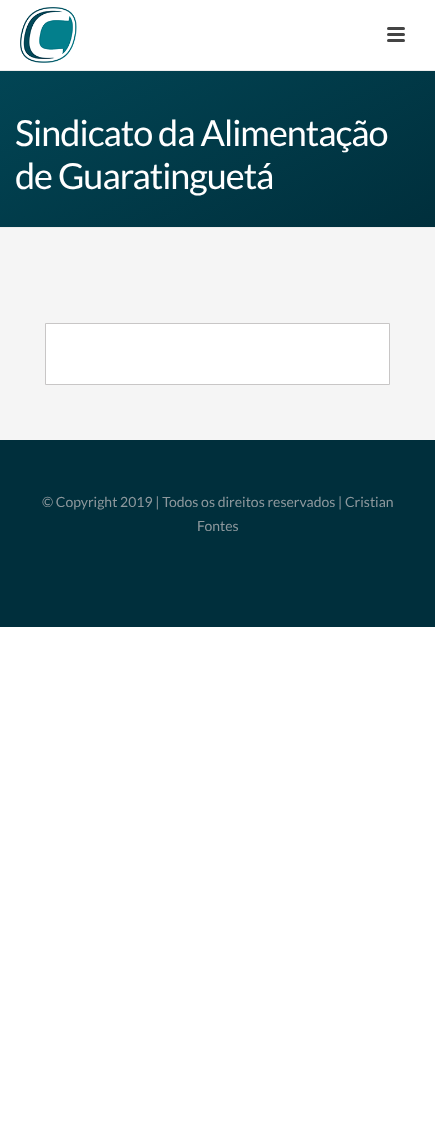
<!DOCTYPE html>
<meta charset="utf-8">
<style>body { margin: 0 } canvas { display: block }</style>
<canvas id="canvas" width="435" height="1123"></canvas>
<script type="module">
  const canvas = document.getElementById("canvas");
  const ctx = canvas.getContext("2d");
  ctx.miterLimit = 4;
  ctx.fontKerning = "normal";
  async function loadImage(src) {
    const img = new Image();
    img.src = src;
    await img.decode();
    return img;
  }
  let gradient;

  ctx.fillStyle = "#ffffff";
  ctx.fillRect(0, 0, 435, 1123);
  gradient = ctx.createLinearGradient(124, -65, 311, 292);
  gradient.addColorStop(0, "#024959");
  gradient.addColorStop(1, "#002f3c");
  ctx.fillStyle = gradient;
  ctx.fillRect(0, 71, 435, 156);
  ctx.fillStyle = "#ededed";
  ctx.fillRect(0, 227, 435, 1);
  ctx.fillRect(0, 70, 435, 1);
  ctx.drawImage(await loadImage("img1.png"), 20, 7, 57, 56);
  ctx.fillStyle = "#444444";
  ctx.beginPath();
  ctx.roundRect(387, 27, 18, 3, 1.5);
  ctx.fill();
  ctx.beginPath();
  ctx.roundRect(387, 33, 18, 3, 1.5);
  ctx.fill();
  ctx.beginPath();
  ctx.roundRect(387, 39, 18, 3, 1.5);
  ctx.fill();
  ctx.letterSpacing = "-1px";
  ctx.font = "36px Lato";
  ctx.fillStyle = "#ffffff";
  ctx.fillText("Sindicato da Alimentação", 15, 146);
  ctx.fillText("de Guaratinguetá", 15, 189);
  ctx.fillStyle = "#f5f5f5";
  ctx.fillRect(0, 228, 435, 212);
  ctx.fillStyle = "#ffffff";
  ctx.beginPath();
  ctx.rect(45.5, 323.5, 344, 61);
  ctx.fill();
  ctx.strokeStyle = "#c8c6c6";
  ctx.stroke();
  ctx.fillStyle = "#002f3c";
  ctx.fillRect(0, 440, 435, 187);
  ctx.letterSpacing = "0px";
  ctx.font = "14px Lato";
  ctx.fillStyle = "#8d989d";
  ctx.fillText("© Copyright 2019 | Todos os direitos reservados | Cristian", 42, 507);
  ctx.fillText("Fontes", 197, 531);
</script>
